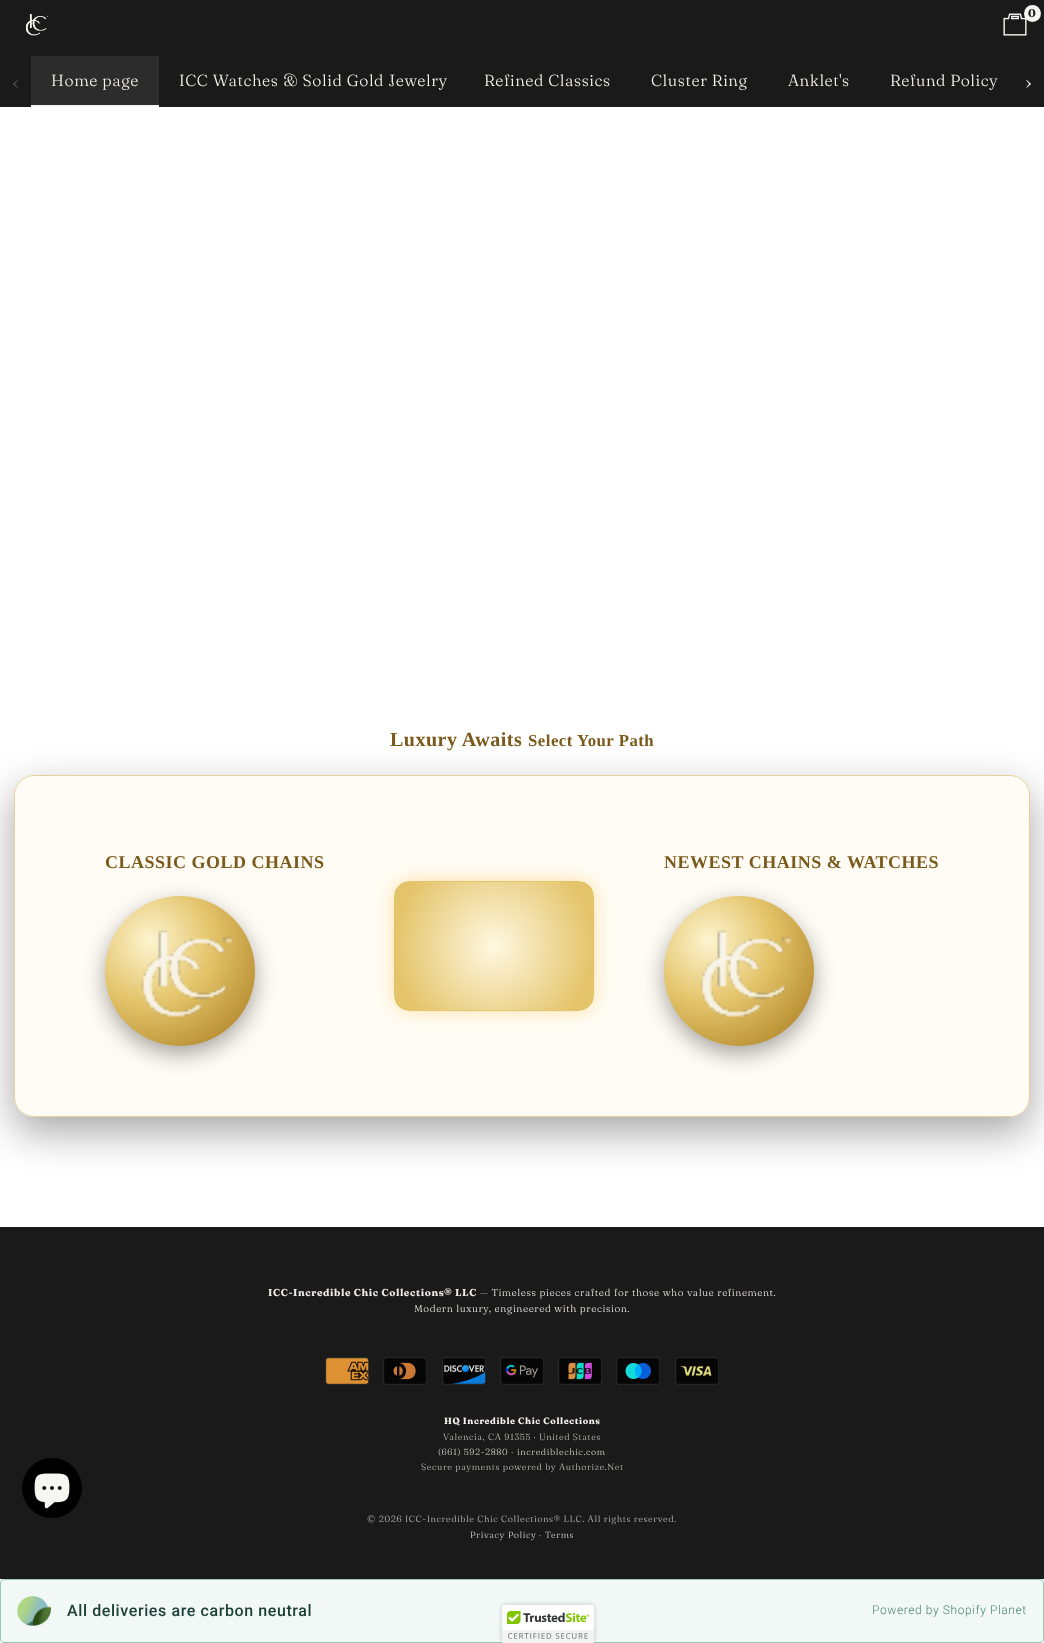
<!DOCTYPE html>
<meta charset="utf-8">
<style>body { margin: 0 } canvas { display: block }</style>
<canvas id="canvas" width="1044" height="1643"></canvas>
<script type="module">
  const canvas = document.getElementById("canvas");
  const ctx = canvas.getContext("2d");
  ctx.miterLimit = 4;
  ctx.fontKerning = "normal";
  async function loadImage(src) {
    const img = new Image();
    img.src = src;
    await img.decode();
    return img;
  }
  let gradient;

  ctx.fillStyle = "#ffffff";
  ctx.fillRect(0, 0, 1044, 1643);
  ctx.fillStyle = "#1a1a1a";
  ctx.fillRect(0, 0, 1044, 107);
  ctx.drawImage(await loadImage("img1.png"), 25, 14, 23, 22);
  ctx.drawImage(await loadImage("img2.png"), 1003, 13, 24, 23);
  ctx.fillStyle = "#f8f6f0";
  ctx.beginPath();
  ctx.arc(1032.5, 13.5, 8.5, 0, Math.PI * 2);
  ctx.fill();
  ctx.letterSpacing = "0.6px";
  ctx.font = "bold 11px Fraunces";
  ctx.fillStyle = "#1a1a1a";
  ctx.fillText("0", 1028, 17);
  ctx.letterSpacing = "0px";
  ctx.font = "300 22px Fraunces";
  ctx.fillStyle = "#5d5c5a";
  ctx.fillText("‹", 12, 89);
  ctx.fillStyle = "#2c2c2c";
  ctx.fillRect(31, 56, 128, 49);
  ctx.fillStyle = "#f8f6f0";
  ctx.fillRect(31, 105, 128, 2);
  ctx.letterSpacing = "0.6px";
  ctx.font = "300 16px 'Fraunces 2'";
  ctx.fillText("Home page", 51, 86);
  ctx.fillText("ICC Watches & Solid Gold Jewelry", 179, 86);
  ctx.fillText("Refined Classics", 484, 86);
  ctx.fillText("Cluster Ring", 651, 86);
  ctx.fillText("Anklet's", 788, 86);
  ctx.fillText("Refund Policy", 890, 86);
  ctx.letterSpacing = "0px";
  ctx.font = "300 22px Fraunces";
  ctx.fillText("›", 1025, 89);
  ctx.save();
  ctx.beginPath();
  ctx.moveTo(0, 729);
  ctx.lineTo(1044, 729);
  ctx.lineTo(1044, 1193);
  ctx.lineTo(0, 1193);
  ctx.closePath();
  ctx.moveTo(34, 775);
  ctx.lineTo(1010, 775);
  ctx.bezierCurveTo(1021, 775, 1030, 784, 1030, 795);
  ctx.lineTo(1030, 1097);
  ctx.bezierCurveTo(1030, 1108, 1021, 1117, 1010, 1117);
  ctx.lineTo(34, 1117);
  ctx.bezierCurveTo(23, 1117, 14, 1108, 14, 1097);
  ctx.lineTo(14, 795);
  ctx.bezierCurveTo(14, 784, 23, 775, 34, 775);
  ctx.closePath();
  ctx.clip("evenodd");
  ctx.fillStyle = "rgba(0, 0, 0, 0.35)";
  ctx.filter = "blur(20px)";
  ctx.beginPath();
  ctx.roundRect(14, 790, 1016, 342, 20);
  ctx.fill();
  ctx.filter = "none";
  ctx.restore();
  ctx.fillStyle = "rgba(255, 245, 225, 0.35)";
  ctx.beginPath();
  ctx.roundRect(14, 775, 1016, 342, 20);
  ctx.fill();
  ctx.beginPath();
  ctx.roundRect(14.5, 775.5, 1015, 341, 19.5);
  ctx.strokeStyle = "rgba(220, 190, 120, 0.7)";
  ctx.stroke();
  ctx.letterSpacing = "0.5px";
  ctx.font = "bold 20px Liberation Serif";
  ctx.fillStyle = "#7a5a1b";
  ctx.fillText("Luxury Awaits", 390, 746);
  ctx.font = "bold 16.75px Liberation Serif";
  ctx.fillText("Select Your Path", 528, 746);
  ctx.font = "bold 18px Liberation Serif";
  ctx.fillText("CLASSIC GOLD CHAINS", 105, 868);
  ctx.fillStyle = "rgba(0, 0, 0, 0.35)";
  ctx.filter = "blur(11px)";
  ctx.beginPath();
  ctx.roundRect(105, 904, 150, 150, 75);
  ctx.fill();
  ctx.filter = "none";
  gradient = ctx.createRadialGradient(150, 941, 0, 150, 941, 148);
  gradient.addColorStop(0, "#fdf4d0");
  gradient.addColorStop(0.42, "#e4c46a");
  gradient.addColorStop(0.85, "#b58a2e");
  ctx.fillStyle = gradient;
  ctx.beginPath();
  ctx.arc(180, 971, 75, 0, Math.PI * 2);
  ctx.fill();
  ctx.drawImage(await loadImage("img3.png"), 141, 930, 91, 87);
  ctx.fillStyle = "rgba(255, 220, 150, 0.85)";
  ctx.filter = "blur(9px)";
  ctx.beginPath();
  ctx.roundRect(394, 881, 200, 130, 16);
  ctx.fill();
  ctx.filter = "none";
  ctx.save();
  ctx.beginPath();
  ctx.roundRect(394, 881, 200, 130, 16);
  ctx.clip();
  gradient = ctx.createRadialGradient(494, 946, 0, 494, 946, 118);
  gradient.addColorStop(0, "#fff8e1");
  gradient.addColorStop(0.85, "#e4c46a");
  ctx.fillStyle = gradient;
  ctx.fillRect(395, 882, 198, 128);
  ctx.restore();
  ctx.beginPath();
  ctx.roundRect(394.5, 881.5, 199, 129, 15.5);
  ctx.strokeStyle = "#e4c46a";
  ctx.stroke();
  ctx.fillStyle = "#7a5a1b";
  ctx.fillText("NEWEST CHAINS & WATCHES", 664, 868);
  ctx.fillStyle = "rgba(0, 0, 0, 0.35)";
  ctx.filter = "blur(11px)";
  ctx.beginPath();
  ctx.roundRect(664, 904, 150, 150, 75);
  ctx.fill();
  ctx.filter = "none";
  gradient = ctx.createRadialGradient(709, 941, 0, 709, 941, 148);
  gradient.addColorStop(0, "#fdf4d0");
  gradient.addColorStop(0.42, "#e4c46a");
  gradient.addColorStop(0.85, "#b58a2e");
  ctx.fillStyle = gradient;
  ctx.beginPath();
  ctx.arc(739, 971, 75, 0, Math.PI * 2);
  ctx.fill();
  ctx.drawImage(await loadImage("img3.png"), 700, 930, 91, 87);
  ctx.fillStyle = "#1a1a1a";
  ctx.fillRect(0, 1227, 1044, 352);
  ctx.fillStyle = "#000000";
  ctx.beginPath();
  ctx.arc(52, 1488, 30, 0, Math.PI * 2);
  ctx.fill();
  ctx.drawImage(await loadImage("img4.png"), 34, 1473, 36, 36);
  ctx.letterSpacing = "0.6px";
  ctx.font = "bold 10px Fraunces";
  ctx.fillStyle = "#edebe5";
  ctx.fillText("ICC-Incredible Chic Collections® LLC", 268, 1296);
  ctx.font = "300 10px Fraunces";
  ctx.fillText("— Timeless pieces crafted for those who value refinement.", 480, 1296);
  ctx.fillText("Modern luxury, engineered with precision.", 414, 1312);
  ctx.drawImage(await loadImage("img5.png"), 325, 1357, 44, 28);
  ctx.drawImage(await loadImage("img6.png"), 383, 1357, 44, 28);
  ctx.drawImage(await loadImage("img7.png"), 442, 1357, 44, 28);
  ctx.drawImage(await loadImage("img8.png"), 500, 1357, 44, 28);
  ctx.drawImage(await loadImage("img9.png"), 558, 1357, 44, 28);
  ctx.drawImage(await loadImage("img10.png"), 616, 1357, 44, 28);
  ctx.drawImage(await loadImage("img11.png"), 675, 1357, 44, 28);
  ctx.font = "bold 9px Fraunces";
  ctx.fillStyle = "#f8f6f0";
  ctx.fillText("HQ Incredible Chic Collections", 444, 1424);
  ctx.font = "300 9px Fraunces";
  ctx.fillStyle = "#c1bfbb";
  ctx.fillText("Valencia, CA 91355 · United States", 443, 1440);
  ctx.fillStyle = "#d7d5d0";
  ctx.fillText("(661) 592-2880", 438, 1455);
  ctx.fillStyle = "#c1bfbb";
  ctx.fillText("·", 511, 1455);
  ctx.fillStyle = "#d7d5d0";
  ctx.fillText("incrediblechic.com", 517, 1455);
  ctx.fillStyle = "#c1bfbb";
  ctx.fillText("Secure payments powered by Authorize.Net", 421, 1470);
  ctx.fillText("© 2026 ICC-Incredible Chic Collections® LLC. All rights reserved.", 367, 1522);
  ctx.fillStyle = "#d7d5d0";
  ctx.fillText("Privacy Policy", 470, 1538);
  ctx.fillStyle = "#c1bfbb";
  ctx.fillText("·", 539, 1538);
  ctx.fillStyle = "#d7d5d0";
  ctx.fillText("Terms", 545, 1538);
  ctx.fillStyle = "#f1f8f5";
  ctx.beginPath();
  ctx.roundRect(0.5, 1579.5, 1043, 63, 3.5);
  ctx.fill();
  ctx.strokeStyle = "#95c9b4";
  ctx.stroke();
  ctx.fillStyle = "rgba(0, 0, 0, 0.2)";
  ctx.filter = "blur(2.5px)";
  ctx.beginPath();
  ctx.roundRect(502, 1605, 92, 38, 2);
  ctx.fill();
  ctx.filter = "none";
  ctx.fillStyle = "#ffffff";
  ctx.beginPath();
  ctx.roundRect(502, 1605, 92, 38, [2, 2, 0, 0]);
  ctx.fill();
  ctx.drawImage(await loadImage("img12.png"), 502, 1611, 92, 32);
  ctx.drawImage(await loadImage("img13.png"), 17, 1596, 34, 30);
  ctx.font = "500 16px Roboto";
  ctx.fillStyle = "#1d4136";
  ctx.fillText("All deliveries are carbon neutral", 67, 1616);
  ctx.font = "300 12px Roboto";
  ctx.fillStyle = "#4a8674";
  ctx.fillText("Powered by Shopify Planet", 872, 1614);
</script>
